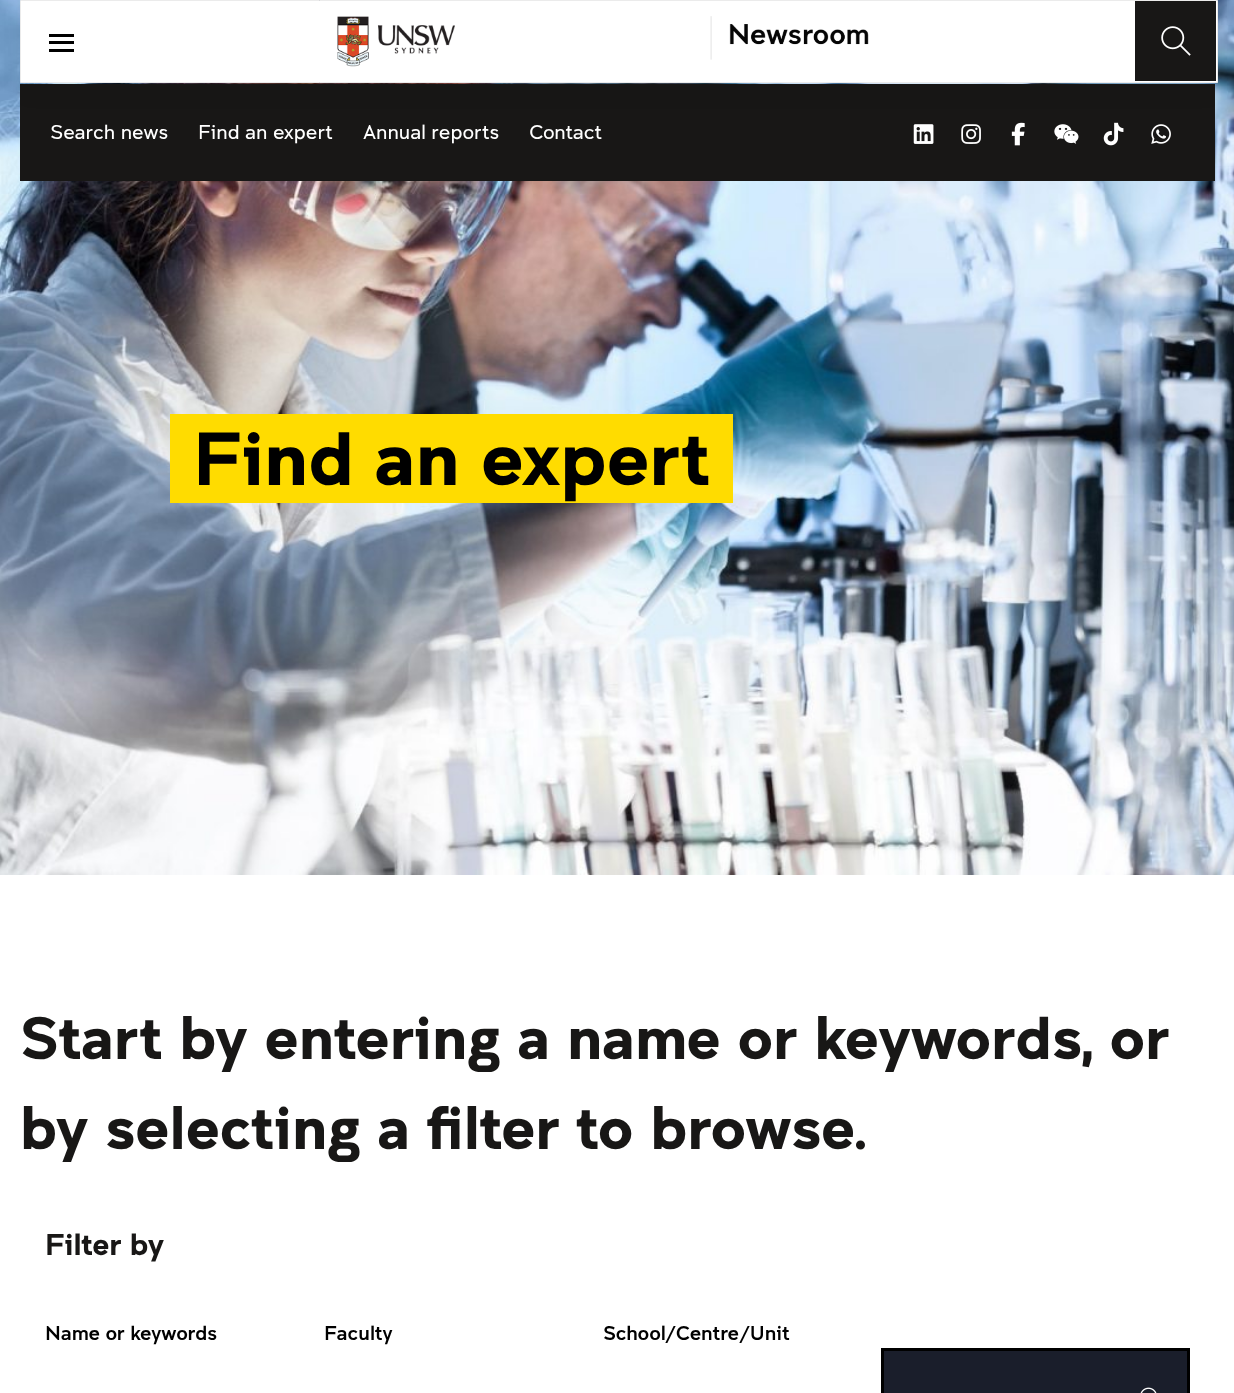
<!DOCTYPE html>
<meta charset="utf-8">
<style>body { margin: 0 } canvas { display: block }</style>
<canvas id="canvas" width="1234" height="1393"></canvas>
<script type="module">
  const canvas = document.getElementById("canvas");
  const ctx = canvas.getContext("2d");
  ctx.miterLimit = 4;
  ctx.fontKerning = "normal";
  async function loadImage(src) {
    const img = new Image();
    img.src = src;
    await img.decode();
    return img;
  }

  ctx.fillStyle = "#ffffff";
  ctx.fillRect(0, 0, 1234, 1393);
  ctx.drawImage(await loadImage("img10.png"), 0, 0, 1234, 875);
  ctx.fillStyle = "#181716";
  ctx.fillRect(20, 84, 1195, 97);
  ctx.drawImage(await loadImage("img6.png"), 1011, 122, 14, 24);
  ctx.drawImage(await loadImage("img8.png"), 1103, 122, 21, 24);
  ctx.fillStyle = "rgba(0, 0, 0, 0.04)";
  ctx.filter = "blur(10px)";
  ctx.beginPath();
  ctx.rect(20, 10, 1198, 83);
  ctx.fill();
  ctx.filter = "none";
  ctx.fillStyle = "#ffffff";
  ctx.beginPath();
  ctx.rect(20.5, 0.5, 1197, 82);
  ctx.fill();
  ctx.strokeStyle = "#ebebeb";
  ctx.stroke();
  ctx.fillStyle = "#000000";
  ctx.fillRect(49, 41, 25, 3);
  ctx.fillRect(49, 34, 25, 3);
  ctx.fillRect(49, 49, 25, 3);
  ctx.drawImage(await loadImage("img1.png"), 337, 16, 118, 51);
  ctx.drawImage(await loadImage("img2.png"), 710, 16, 159, 44);
  ctx.fillStyle = "#181716";
  ctx.fillRect(1135, 1, 81, 80);
  ctx.drawImage(await loadImage("img3.png"), 1161, 26, 30, 30);
  ctx.font = "300 20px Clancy";
  ctx.fillStyle = "#ffffff";
  ctx.fillText("Search news", 50, 139);
  ctx.fillText("Find an expert", 198, 139);
  ctx.fillText("Annual reports", 363, 139);
  ctx.fillText("Contact", 529, 139);
  ctx.drawImage(await loadImage("img4.png"), 913, 124, 21, 20);
  ctx.drawImage(await loadImage("img5.png"), 961, 124, 20, 20);
  ctx.drawImage(await loadImage("img7.png"), 1054, 124, 25, 20);
  ctx.drawImage(await loadImage("img9.png"), 1151, 124, 20, 20);
  ctx.fillStyle = "#ffdc00";
  ctx.fillRect(170, 414, 563, 89);
  ctx.font = "bold 75px Clancy";
  ctx.fillStyle = "#000000";
  ctx.fillText("Find an expert", 193, 485);
  ctx.font = "bold 60px Clancy";
  ctx.fillStyle = "#181716";
  ctx.fillText("Start by entering a name or keywords, or", 20, 1059);
  ctx.fillText("by selecting a filter to browse.", 20, 1149);
  ctx.font = "bold 30px Clancy";
  ctx.fillText("Filter by", 45, 1255);
  ctx.font = "20px Clancy";
  ctx.fillStyle = "#000000";
  ctx.fillText("Name or keywords", 45, 1340);
  ctx.fillText("Faculty", 324, 1340);
  ctx.fillText("School/Centre/Unit", 603, 1340);
  ctx.fillStyle = "#1a1e2b";
  ctx.beginPath();
  ctx.rect(882.5, 1349.5, 306, 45);
  ctx.fill();
  ctx.strokeStyle = "#000000";
  ctx.lineWidth = 3;
  ctx.stroke();
  ctx.drawImage(await loadImage("img11.png"), 1140, 1387, 17, 6);
</script>
